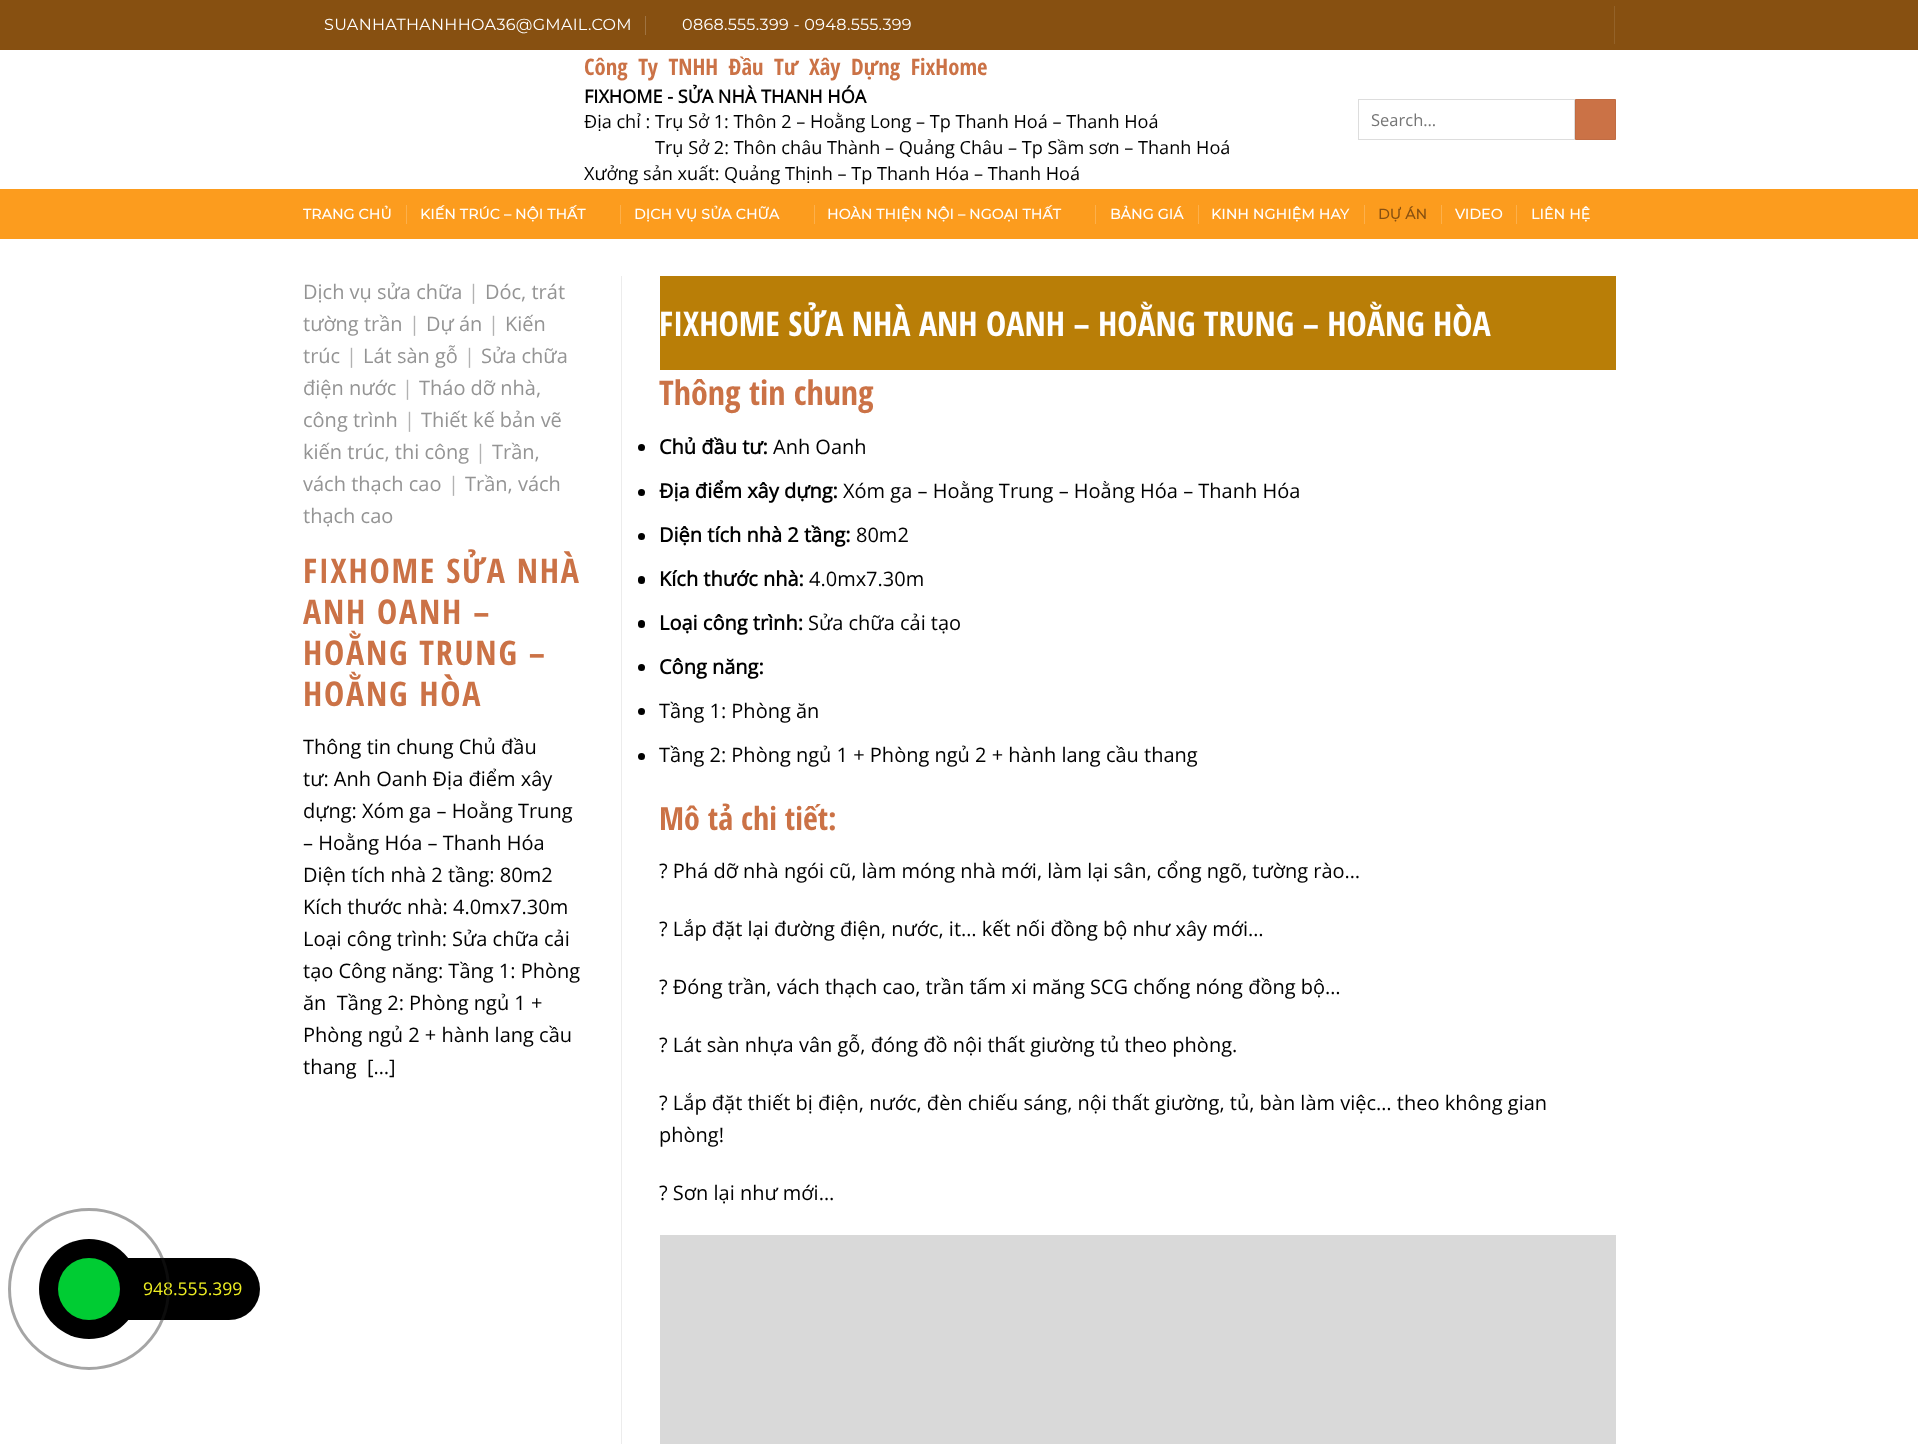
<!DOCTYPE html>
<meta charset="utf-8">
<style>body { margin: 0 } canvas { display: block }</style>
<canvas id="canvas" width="1918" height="1444"></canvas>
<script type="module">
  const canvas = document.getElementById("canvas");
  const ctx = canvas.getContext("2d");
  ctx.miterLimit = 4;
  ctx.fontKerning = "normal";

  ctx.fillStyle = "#ffffff";
  ctx.fillRect(0, 0, 1918, 1444);
  ctx.fillStyle = "#875011";
  ctx.fillRect(0, 0, 1918, 50);
  ctx.letterSpacing = "0.3px";
  ctx.font = "100 16px Montserrat";
  ctx.fillStyle = "#ffffff";
  ctx.fillText("SUANHATHANHHOA36@GMAIL.COM", 324, 30);
  ctx.fillStyle = "#9f7341";
  ctx.fillRect(645, 16, 1, 19);
  ctx.fillStyle = "#ffffff";
  ctx.fillText("0868.555.399 - 0948.555.399", 682, 30);
  ctx.fillStyle = "#936229";
  ctx.fillRect(1614, 6, 1, 38);
  ctx.letterSpacing = "0px";
  ctx.wordSpacing = "5px";
  ctx.font = "bold 22.7px Open Sans Condensed";
  ctx.fillStyle = "#cb7246";
  ctx.fillText("Công Ty TNHH Đầu Tư Xây Dựng FixHome", 584, 75);
  ctx.wordSpacing = "0px";
  ctx.font = "bold 18.1px Open Sans";
  ctx.fillStyle = "#000000";
  ctx.fillText("FIXHOME - SỬA NHÀ THANH HÓA", 584, 103);
  ctx.font = "18.1px Open Sans";
  ctx.fillText("Địa chỉ : Trụ Sở 1: Thôn 2 – Hoằng Long – Tp Thanh Hoá – Thanh Hoá", 584, 128);
  ctx.fillText("Trụ Sở 2: Thôn châu Thành – Quảng Châu – Tp Sầm sơn – Thanh Hoá", 655, 154);
  ctx.fillText("Xưởng sản xuất: Quảng Thịnh – Tp Thanh Hóa – Thanh Hoá", 584, 180);
  ctx.strokeStyle = "#dddddd";
  ctx.strokeRect(1358.5, 99.5, 216, 40);
  ctx.font = "16.5px Open Sans";
  ctx.fillStyle = "#757575";
  ctx.fillText("Search…", 1371, 126);
  ctx.fillStyle = "#cb7246";
  ctx.beginPath();
  ctx.rect(1575.5, 99.5, 40, 40);
  ctx.fill();
  ctx.strokeStyle = "#c16c43";
  ctx.stroke();
  ctx.fillStyle = "#fc9c1e";
  ctx.fillRect(0, 189, 1918, 50);
  ctx.letterSpacing = "0.25px";
  ctx.font = "bold 14px Montserrat";
  ctx.fillStyle = "#ffffff";
  ctx.fillText("TRANG CHỦ", 303, 219);
  ctx.fillStyle = "#fdb04b";
  ctx.fillRect(406, 205, 1, 19);
  ctx.fillStyle = "#ffffff";
  ctx.fillText("KIẾN TRÚC – NỘI THẤT", 420, 219);
  ctx.fillStyle = "#fdb04b";
  ctx.fillRect(620, 205, 1, 19);
  ctx.fillStyle = "#ffffff";
  ctx.fillText("DỊCH VỤ SỬA CHỮA", 634, 219);
  ctx.fillStyle = "#fdb04b";
  ctx.fillRect(814, 205, 1, 19);
  ctx.fillStyle = "#ffffff";
  ctx.fillText("HOÀN THIỆN NỘI – NGOẠI THẤT", 827, 219);
  ctx.fillStyle = "#fdb04b";
  ctx.fillRect(1095, 205, 1, 19);
  ctx.fillStyle = "#ffffff";
  ctx.fillText("BẢNG GIÁ", 1110, 219);
  ctx.fillStyle = "#fdb04b";
  ctx.fillRect(1198, 205, 1, 19);
  ctx.fillStyle = "#ffffff";
  ctx.fillText("KINH NGHIỆM HAY", 1211, 219);
  ctx.fillStyle = "#fdb04b";
  ctx.fillRect(1364, 205, 1, 19);
  ctx.fillStyle = "#875011";
  ctx.fillText("DỰ ÁN", 1378, 219);
  ctx.fillStyle = "#fdb04b";
  ctx.fillRect(1441, 205, 1, 19);
  ctx.fillStyle = "#ffffff";
  ctx.fillText("VIDEO", 1455, 219);
  ctx.fillStyle = "#fdb04b";
  ctx.fillRect(1516, 205, 1, 19);
  ctx.fillStyle = "#ffffff";
  ctx.fillText("LIÊN HỆ", 1531, 219);
  ctx.fillStyle = "#ececec";
  ctx.fillRect(621, 276, 1, 1168);
  ctx.letterSpacing = "0px";
  ctx.font = "20px Open Sans";
  ctx.fillStyle = "#949494";
  ctx.fillText("Dịch vụ sửa chữa", 303, 299);
  ctx.fillStyle = "#b2b2b2";
  ctx.fillText("|", 468, 299);
  ctx.fillStyle = "#949494";
  ctx.fillText("Dóc, trát", 485, 299);
  ctx.fillText("tường trần", 303, 331);
  ctx.fillStyle = "#b2b2b2";
  ctx.fillText("|", 409, 331);
  ctx.fillStyle = "#949494";
  ctx.fillText("Dự án", 426, 331);
  ctx.fillStyle = "#b2b2b2";
  ctx.fillText("|", 488, 331);
  ctx.fillStyle = "#949494";
  ctx.fillText("Kiến", 505, 331);
  ctx.fillText("trúc", 303, 363);
  ctx.fillStyle = "#b2b2b2";
  ctx.fillText("|", 346, 363);
  ctx.fillStyle = "#949494";
  ctx.fillText("Lát sàn gỗ", 363, 363);
  ctx.fillStyle = "#b2b2b2";
  ctx.fillText("|", 464, 363);
  ctx.fillStyle = "#949494";
  ctx.fillText("Sửa chữa", 481, 363);
  ctx.fillText("điện nước", 303, 395);
  ctx.fillStyle = "#b2b2b2";
  ctx.fillText("|", 402, 395);
  ctx.fillStyle = "#949494";
  ctx.fillText("Tháo dỡ nhà,", 419, 395);
  ctx.fillText("công trình", 303, 427);
  ctx.fillStyle = "#b2b2b2";
  ctx.fillText("|", 404, 427);
  ctx.fillStyle = "#949494";
  ctx.fillText("Thiết kế bản vẽ", 421, 427);
  ctx.fillText("kiến trúc, thi công", 303, 459);
  ctx.fillStyle = "#b2b2b2";
  ctx.fillText("|", 475, 459);
  ctx.fillStyle = "#949494";
  ctx.fillText("Trần,", 492, 459);
  ctx.fillText("vách thạch cao", 303, 491);
  ctx.fillStyle = "#b2b2b2";
  ctx.fillText("|", 448, 491);
  ctx.fillStyle = "#949494";
  ctx.fillText("Trần, vách", 465, 491);
  ctx.fillText("thạch cao", 303, 523);
  ctx.letterSpacing = "1.75px";
  ctx.font = "bold 34px Open Sans Condensed";
  ctx.fillStyle = "#cb7246";
  ctx.fillText("FIXHOME SỬA NHÀ", 303, 583);
  ctx.fillText("ANH OANH –", 303, 624);
  ctx.fillText("HOẰNG TRUNG –", 303, 665);
  ctx.fillText("HOẰNG HÒA", 303, 706);
  ctx.letterSpacing = "0px";
  ctx.font = "20px Open Sans";
  ctx.fillStyle = "#000000";
  ctx.fillText("Thông tin chung Chủ đầu", 303, 754);
  ctx.fillText("tư: Anh Oanh Địa điểm xây", 303, 786);
  ctx.fillText("dựng: Xóm ga – Hoằng Trung", 303, 818);
  ctx.fillText("– Hoằng Hóa – Thanh Hóa", 303, 850);
  ctx.fillText("Diện tích nhà 2 tầng: 80m2", 303, 882);
  ctx.fillText("Kích thước nhà: 4.0mx7.30m", 303, 914);
  ctx.fillText("Loại công trình: Sửa chữa cải", 303, 946);
  ctx.fillText("tạo Công năng: Tầng 1: Phòng", 303, 978);
  ctx.fillText("ăn  Tầng 2: Phòng ngủ 1 +", 303, 1010);
  ctx.fillText("Phòng ngủ 2 + hành lang cầu", 303, 1042);
  ctx.fillText("thang  […]", 303, 1074);
  ctx.fillStyle = "#b97e07";
  ctx.fillRect(660, 276, 956, 94);
  ctx.font = "bold 34px Open Sans Condensed";
  ctx.fillStyle = "#ffffff";
  ctx.fillText("FIXHOME SỬA NHÀ ANH OANH – HOẰNG TRUNG – HOẰNG HÒA", 659, 336);
  ctx.fillStyle = "#cb7246";
  ctx.fillText("Thông tin chung", 659, 405);
  ctx.fillStyle = "#000000";
  ctx.beginPath();
  ctx.arc(641.5, 447.5, 3.5, 0, Math.PI * 2);
  ctx.fill();
  ctx.font = "bold 20px Open Sans";
  ctx.fillText("Chủ đầu tư:", 659, 454);
  ctx.font = "20px Open Sans";
  ctx.fillText("Anh Oanh", 773, 454);
  ctx.beginPath();
  ctx.arc(641.5, 492.5, 3.5, 0, Math.PI * 2);
  ctx.fill();
  ctx.font = "bold 20px Open Sans";
  ctx.fillText("Địa điểm xây dựng:", 659, 498);
  ctx.font = "20px Open Sans";
  ctx.fillText("Xóm ga – Hoằng Trung – Hoằng Hóa – Thanh Hóa", 843, 498);
  ctx.beginPath();
  ctx.arc(641.5, 536.5, 3.5, 0, Math.PI * 2);
  ctx.fill();
  ctx.font = "bold 20px Open Sans";
  ctx.fillText("Diện tích nhà 2 tầng:", 659, 542);
  ctx.font = "20px Open Sans";
  ctx.fillText("80m2", 856, 542);
  ctx.beginPath();
  ctx.roundRect(638, 576, 7, 8, 3.5);
  ctx.fill();
  ctx.font = "bold 20px Open Sans";
  ctx.fillText("Kích thước nhà:", 659, 586);
  ctx.font = "20px Open Sans";
  ctx.fillText("4.0mx7.30m", 809, 586);
  ctx.beginPath();
  ctx.roundRect(638, 620, 7, 8, 3.5);
  ctx.fill();
  ctx.font = "bold 20px Open Sans";
  ctx.fillText("Loại công trình:", 659, 630);
  ctx.font = "20px Open Sans";
  ctx.fillText("Sửa chữa cải tạo", 808, 630);
  ctx.beginPath();
  ctx.arc(641.5, 667.5, 3.5, 0, Math.PI * 2);
  ctx.fill();
  ctx.font = "bold 20px Open Sans";
  ctx.fillText("Công năng:", 659, 674);
  ctx.beginPath();
  ctx.arc(641.5, 711.5, 3.5, 0, Math.PI * 2);
  ctx.fill();
  ctx.font = "20px Open Sans";
  ctx.fillText("Tầng 1: Phòng ăn", 659, 718);
  ctx.beginPath();
  ctx.arc(641.5, 756.5, 3.5, 0, Math.PI * 2);
  ctx.fill();
  ctx.fillText("Tầng 2: Phòng ngủ 1 + Phòng ngủ 2 + hành lang cầu thang", 659, 762);
  ctx.font = "bold 32px Open Sans Condensed";
  ctx.fillStyle = "#cb7246";
  ctx.fillText("Mô tả chi tiết:", 659, 830);
  ctx.font = "20px Open Sans";
  ctx.fillStyle = "#000000";
  ctx.fillText("? Phá dỡ nhà ngói cũ, làm móng nhà mới, làm lại sân, cổng ngõ, tường rào…", 659, 878);
  ctx.fillText("? Lắp đặt lại đường điện, nước, it… kết nối đồng bộ như xây mới…", 659, 936);
  ctx.fillText("? Đóng trần, vách thạch cao, trần tấm xi măng SCG chống nóng đồng bộ…", 659, 994);
  ctx.fillText("? Lát sàn nhựa vân gỗ, đóng đồ nội thất giường tủ theo phòng.", 659, 1052);
  ctx.fillText("? Lắp đặt thiết bị điện, nước, đèn chiếu sáng, nội thất giường, tủ, bàn làm việc… theo không gian", 659, 1110);
  ctx.fillText("phòng!", 659, 1142);
  ctx.fillText("? Sơn lại như mới…", 659, 1200);
  ctx.fillStyle = "#d9d9d9";
  ctx.fillRect(660, 1235, 956, 209);
  ctx.fillStyle = "#000000";
  ctx.beginPath();
  ctx.roundRect(58, 1258, 202, 62, 31);
  ctx.fill();
  ctx.font = "17.5px Open Sans";
  ctx.fillStyle = "#eeee22";
  ctx.fillText("948.555.399", 143, 1295);
  ctx.beginPath();
  ctx.arc(89, 1289, 79.5, 0, Math.PI * 2);
  ctx.strokeStyle = "rgba(30, 30, 30, 0.4)";
  ctx.lineWidth = 3;
  ctx.stroke();
  ctx.fillStyle = "#000000";
  ctx.beginPath();
  ctx.arc(89, 1289, 50, 0, Math.PI * 2);
  ctx.fill();
  ctx.fillStyle = "#00cc33";
  ctx.beginPath();
  ctx.arc(89, 1289, 31, 0, Math.PI * 2);
  ctx.fill();
</script>
